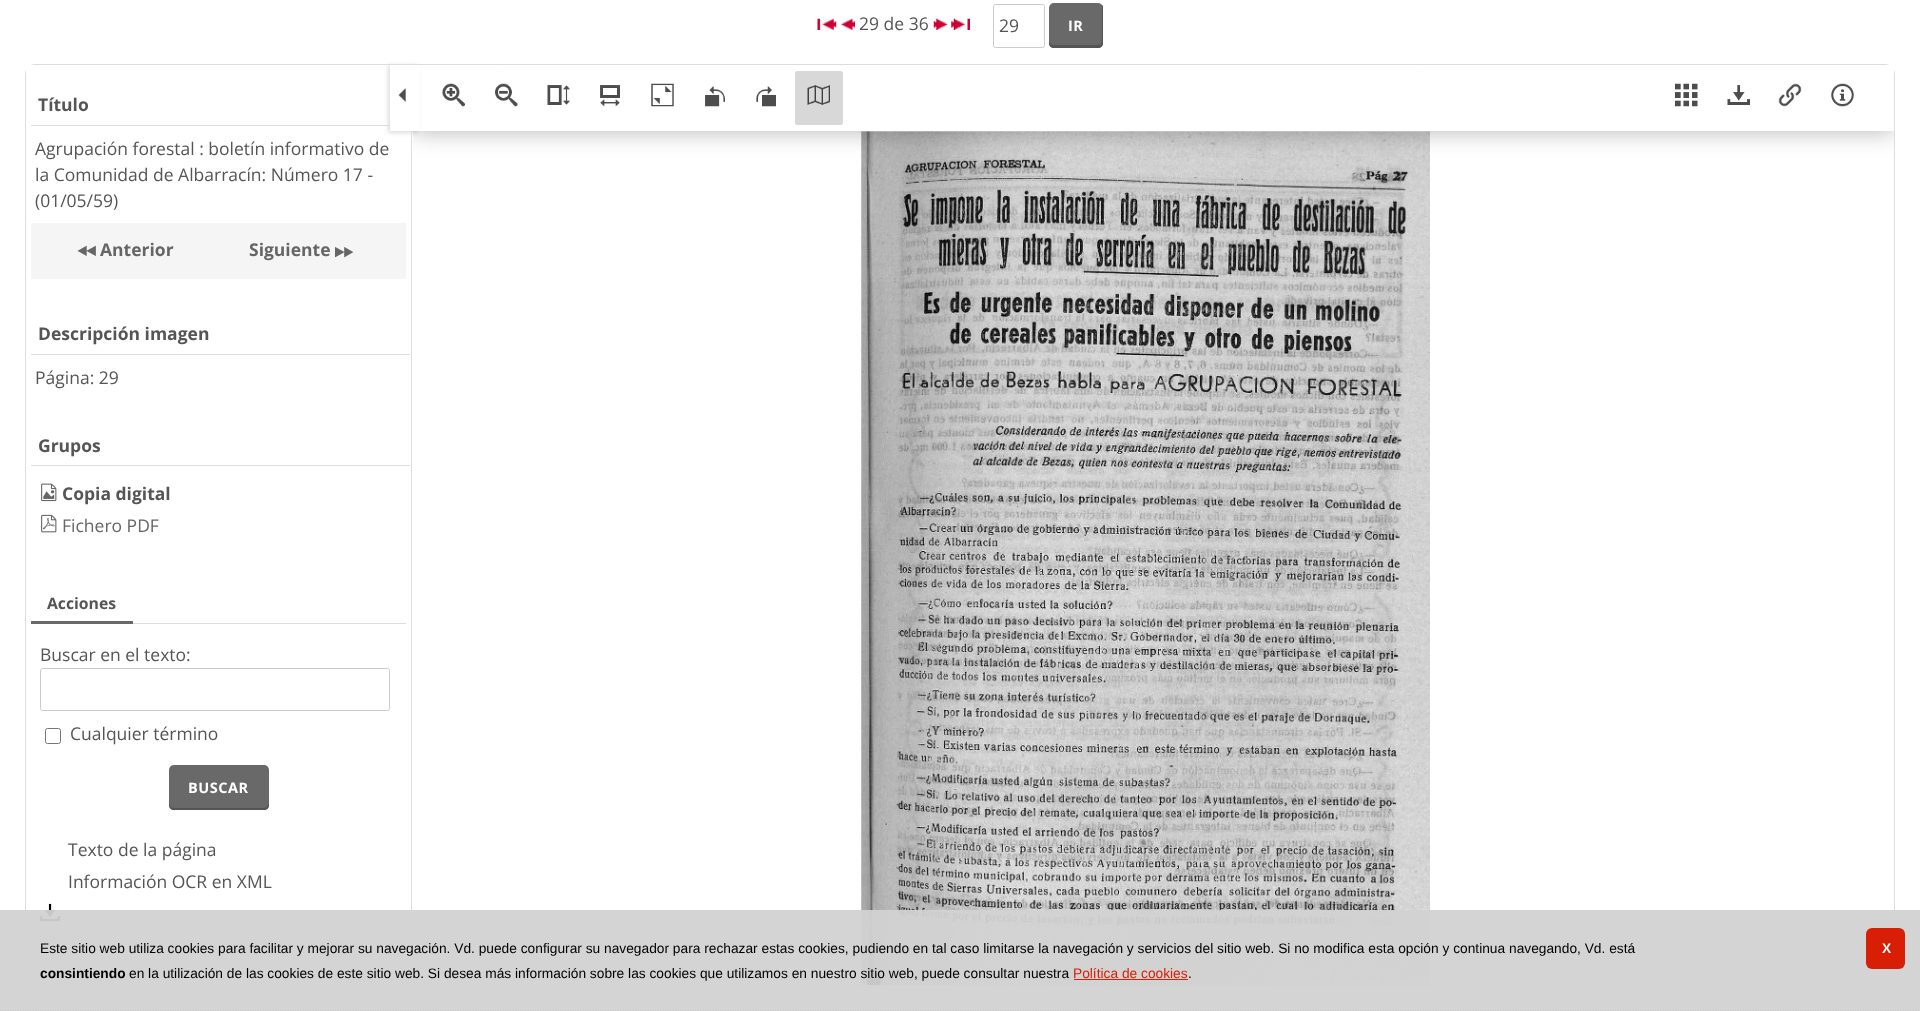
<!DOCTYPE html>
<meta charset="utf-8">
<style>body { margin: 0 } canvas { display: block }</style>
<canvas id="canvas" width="1920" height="1011"></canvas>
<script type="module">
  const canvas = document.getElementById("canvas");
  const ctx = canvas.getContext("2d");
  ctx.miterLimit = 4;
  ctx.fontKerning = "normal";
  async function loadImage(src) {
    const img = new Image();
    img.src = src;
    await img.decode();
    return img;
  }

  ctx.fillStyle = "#ffffff";
  ctx.fillRect(0, 0, 1920, 1011);
  ctx.drawImage(await loadImage("img1.png"), 817, 18, 20, 12);
  ctx.drawImage(await loadImage("img2.png"), 841, 18, 14, 12);
  ctx.font = "17.5px Open Sans";
  ctx.fillStyle = "#555555";
  ctx.fillText("29 de 36", 859, 30);
  ctx.drawImage(await loadImage("img3.png"), 933, 18, 15, 12);
  ctx.drawImage(await loadImage("img4.png"), 951, 18, 19, 12);
  ctx.beginPath();
  ctx.roundRect(993.5, 4.5, 51, 43, 2);
  ctx.strokeStyle = "#cccccc";
  ctx.stroke();
  ctx.fillText("29", 999, 32);
  ctx.fillStyle = "#696969";
  ctx.beginPath();
  ctx.roundRect(1049, 3, 54, 45, 5);
  ctx.fill();
  ctx.fillStyle = "#555555";
  ctx.beginPath();
  ctx.moveTo(1049, 40);
  ctx.lineTo(1049, 43);
  ctx.bezierCurveTo(1049, 46, 1051, 48, 1054, 48);
  ctx.lineTo(1098, 48);
  ctx.bezierCurveTo(1101, 48, 1103, 46, 1103, 43);
  ctx.lineTo(1103, 8);
  ctx.bezierCurveTo(1103, 7, 1103, 6, 1102, 5);
  ctx.lineTo(1102, 40);
  ctx.bezierCurveTo(1102, 43, 1100, 45, 1098, 45);
  ctx.lineTo(1054, 45);
  ctx.bezierCurveTo(1051, 45, 1049, 43, 1049, 40);
  ctx.closePath();
  ctx.fill();
  ctx.letterSpacing = "0.5px";
  ctx.font = "bold 14.5px Open Sans";
  ctx.fillStyle = "#ffffff";
  ctx.fillText("IR", 1068, 31);
  ctx.beginPath();
  ctx.roundRect(25.5, 64.5, 1869, 921, 9.5);
  ctx.strokeStyle = "#dddddd";
  ctx.stroke();
  ctx.fillRect(26, 65, 8, 920);
  ctx.fillStyle = "#dddddd";
  ctx.fillRect(411, 131, 1, 854);
  ctx.fillRect(31, 125, 359, 1);
  ctx.letterSpacing = "0px";
  ctx.font = "bold 17.5px Open Sans";
  ctx.fillStyle = "#555555";
  ctx.fillText("Título", 38, 111);
  ctx.font = "17.5px Open Sans";
  ctx.fillText("Agrupación forestal : boletín informativo de", 35, 155);
  ctx.fillText("la Comunidad de Albarracín: Número 17 -", 35, 181);
  ctx.fillText("(01/05/59)", 35, 207);
  ctx.fillStyle = "#f5f5f5";
  ctx.fillRect(31, 223, 375, 56);
  ctx.drawImage(await loadImage("img5.png"), 77, 245, 19, 11);
  ctx.font = "bold 17.5px Open Sans";
  ctx.fillStyle = "#666666";
  ctx.fillText("Anterior", 100, 256);
  ctx.fillText("Siguiente", 249, 256);
  ctx.drawImage(await loadImage("img6.png"), 335, 247, 19, 11);
  ctx.fillStyle = "#dddddd";
  ctx.fillRect(31, 354, 379, 1);
  ctx.fillStyle = "#555555";
  ctx.fillText("Descripción imagen", 38, 340);
  ctx.font = "17.5px Open Sans";
  ctx.fillText("Página: 29", 35, 384);
  ctx.fillStyle = "#dddddd";
  ctx.fillRect(31, 465, 379, 1);
  ctx.font = "bold 17.5px Open Sans";
  ctx.fillStyle = "#555555";
  ctx.fillText("Grupos", 38, 452);
  ctx.drawImage(await loadImage("img7.png"), 41, 483, 16, 19);
  ctx.fillText("Copia digital", 62, 500);
  ctx.drawImage(await loadImage("img8.png"), 41, 514, 16, 19);
  ctx.font = "17.5px Open Sans";
  ctx.fillStyle = "#666666";
  ctx.fillText("Fichero PDF", 62, 532);
  ctx.fillStyle = "#dddddd";
  ctx.fillRect(133, 623, 273, 1);
  ctx.fillStyle = "#696969";
  ctx.fillRect(31, 621, 102, 3);
  ctx.font = "bold 15.75px Open Sans";
  ctx.fillStyle = "#555555";
  ctx.fillText("Acciones", 47, 609);
  ctx.font = "17.5px Open Sans";
  ctx.fillText("Buscar en el texto:", 40, 661);
  ctx.beginPath();
  ctx.roundRect(40.5, 668.5, 349, 42, 2);
  ctx.strokeStyle = "#cccccc";
  ctx.stroke();
  ctx.beginPath();
  ctx.roundRect(45.5, 728.5, 15, 15, 2);
  ctx.strokeStyle = "#767676";
  ctx.stroke();
  ctx.fillText("Cualquier término", 70, 740);
  ctx.fillStyle = "#696969";
  ctx.beginPath();
  ctx.roundRect(169, 765, 100, 45, 5);
  ctx.fill();
  ctx.fillStyle = "#555555";
  ctx.beginPath();
  ctx.moveTo(169, 802);
  ctx.lineTo(169, 805);
  ctx.bezierCurveTo(169, 808, 171, 810, 174, 810);
  ctx.lineTo(264, 810);
  ctx.bezierCurveTo(267, 810, 269, 808, 269, 805);
  ctx.lineTo(269, 802);
  ctx.bezierCurveTo(269, 805, 267, 808, 264, 808);
  ctx.lineTo(174, 808);
  ctx.bezierCurveTo(171, 808, 169, 805, 169, 802);
  ctx.closePath();
  ctx.fill();
  ctx.letterSpacing = "0.5px";
  ctx.font = "bold 14.5px Open Sans";
  ctx.fillStyle = "#ffffff";
  ctx.fillText("BUSCAR", 188, 793);
  ctx.letterSpacing = "0px";
  ctx.font = "17.5px Open Sans";
  ctx.fillStyle = "#555555";
  ctx.fillText("Texto de la página", 68, 856);
  ctx.fillText("Información OCR en XML", 68, 888);
  ctx.drawImage(await loadImage("img9.png"), 40, 903, 20, 19);
  ctx.fillStyle = "#dddddd";
  ctx.filter = "blur(2px)";
  ctx.beginPath();
  ctx.rect(388, 65, 30, 68);
  ctx.fill();
  ctx.filter = "none";
  ctx.fillStyle = "#ffffff";
  ctx.fillRect(390, 65, 30, 66);
  ctx.drawImage(await loadImage("img10.png"), 398, 88, 8, 14);
  ctx.fillRect(1886, 65, 8, 920);
  ctx.drawImage(await loadImage("img23.png"), 861, 131, 569, 854);
  ctx.save();
  ctx.beginPath();
  ctx.rect(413, 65, 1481, 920);
  ctx.clip();
  ctx.beginPath();
  ctx.moveTo(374, 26);
  ctx.lineTo(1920, 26);
  ctx.lineTo(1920, 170);
  ctx.lineTo(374, 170);
  ctx.closePath();
  ctx.moveTo(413, 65);
  ctx.lineTo(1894, 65);
  ctx.lineTo(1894, 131);
  ctx.lineTo(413, 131);
  ctx.closePath();
  ctx.clip("evenodd");
  ctx.fillStyle = "rgba(0, 0, 0, 0.3)";
  ctx.filter = "blur(12.5px)";
  ctx.beginPath();
  ctx.rect(413, 65, 1481, 66);
  ctx.fill();
  ctx.filter = "none";
  ctx.restore();
  ctx.drawImage(await loadImage("img11.png"), 442, 83, 23, 24);
  ctx.drawImage(await loadImage("img12.png"), 495, 83, 23, 24);
  ctx.drawImage(await loadImage("img13.png"), 547, 85, 23, 20);
  ctx.drawImage(await loadImage("img14.png"), 600, 85, 20, 22);
  ctx.drawImage(await loadImage("img15.png"), 651, 83, 23, 24);
  ctx.drawImage(await loadImage("img16.png"), 705, 86, 20, 21);
  ctx.drawImage(await loadImage("img17.png"), 756, 86, 20, 21);
  ctx.fillStyle = "#d8d8d8";
  ctx.beginPath();
  ctx.roundRect(795, 71, 48, 54, 2.5);
  ctx.fill();
  ctx.drawImage(await loadImage("img18.png"), 807, 85, 23, 20);
  ctx.drawImage(await loadImage("img19.png"), 1675, 83, 23, 24);
  ctx.drawImage(await loadImage("img20.png"), 1727, 85, 23, 20);
  ctx.drawImage(await loadImage("img21.png"), 1778, 83, 24, 24);
  ctx.drawImage(await loadImage("img22.png"), 1831, 83, 23, 24);
  ctx.fillStyle = "rgba(210, 210, 210, 0.95)";
  ctx.fillRect(0, 910, 1920, 101);
  ctx.beginPath();
  ctx.moveTo(0, 1010.5);
  ctx.lineTo(1920, 1010.5);
  ctx.strokeStyle = "#cccccc";
  ctx.lineWidth = 1.2;
  ctx.setLineDash([1.25, 1.25]);
  ctx.stroke();
  ctx.font = "13.75px Liberation Sans";
  ctx.fillStyle = "#000000";
  ctx.fillText("Este sitio web utiliza cookies para facilitar y mejorar su navegación. Vd. puede configurar su navegador para rechazar estas cookies, pudiendo en tal caso limitarse la navegación y servicios del sitio web. Si no modifica esta opción y continua navegando, Vd. está", 40, 953);
  ctx.font = "bold 13.75px Liberation Sans";
  ctx.fillText("consintiendo", 40, 978);
  ctx.font = "13.75px Liberation Sans";
  ctx.fillText("en la utilización de las cookies de este sitio web. Si desea más información sobre las cookies que utilizamos en nuestro sitio web, puede consultar nuestra", 129, 978);
  ctx.fillStyle = "#d81e05";
  ctx.fillText("Política de cookies", 1073, 978);
  ctx.fillStyle = "#000000";
  ctx.fillText(".", 1188, 978);
  ctx.fillStyle = "#d81e05";
  ctx.fillRect(1074, 979, 114, 1);
  ctx.beginPath();
  ctx.roundRect(1866, 928, 39, 41, 6);
  ctx.fill();
  ctx.letterSpacing = "-1px";
  ctx.font = "bold 13.75px Liberation Sans";
  ctx.fillStyle = "#ffffff";
  ctx.fillText("X", 1882, 953);
</script>
